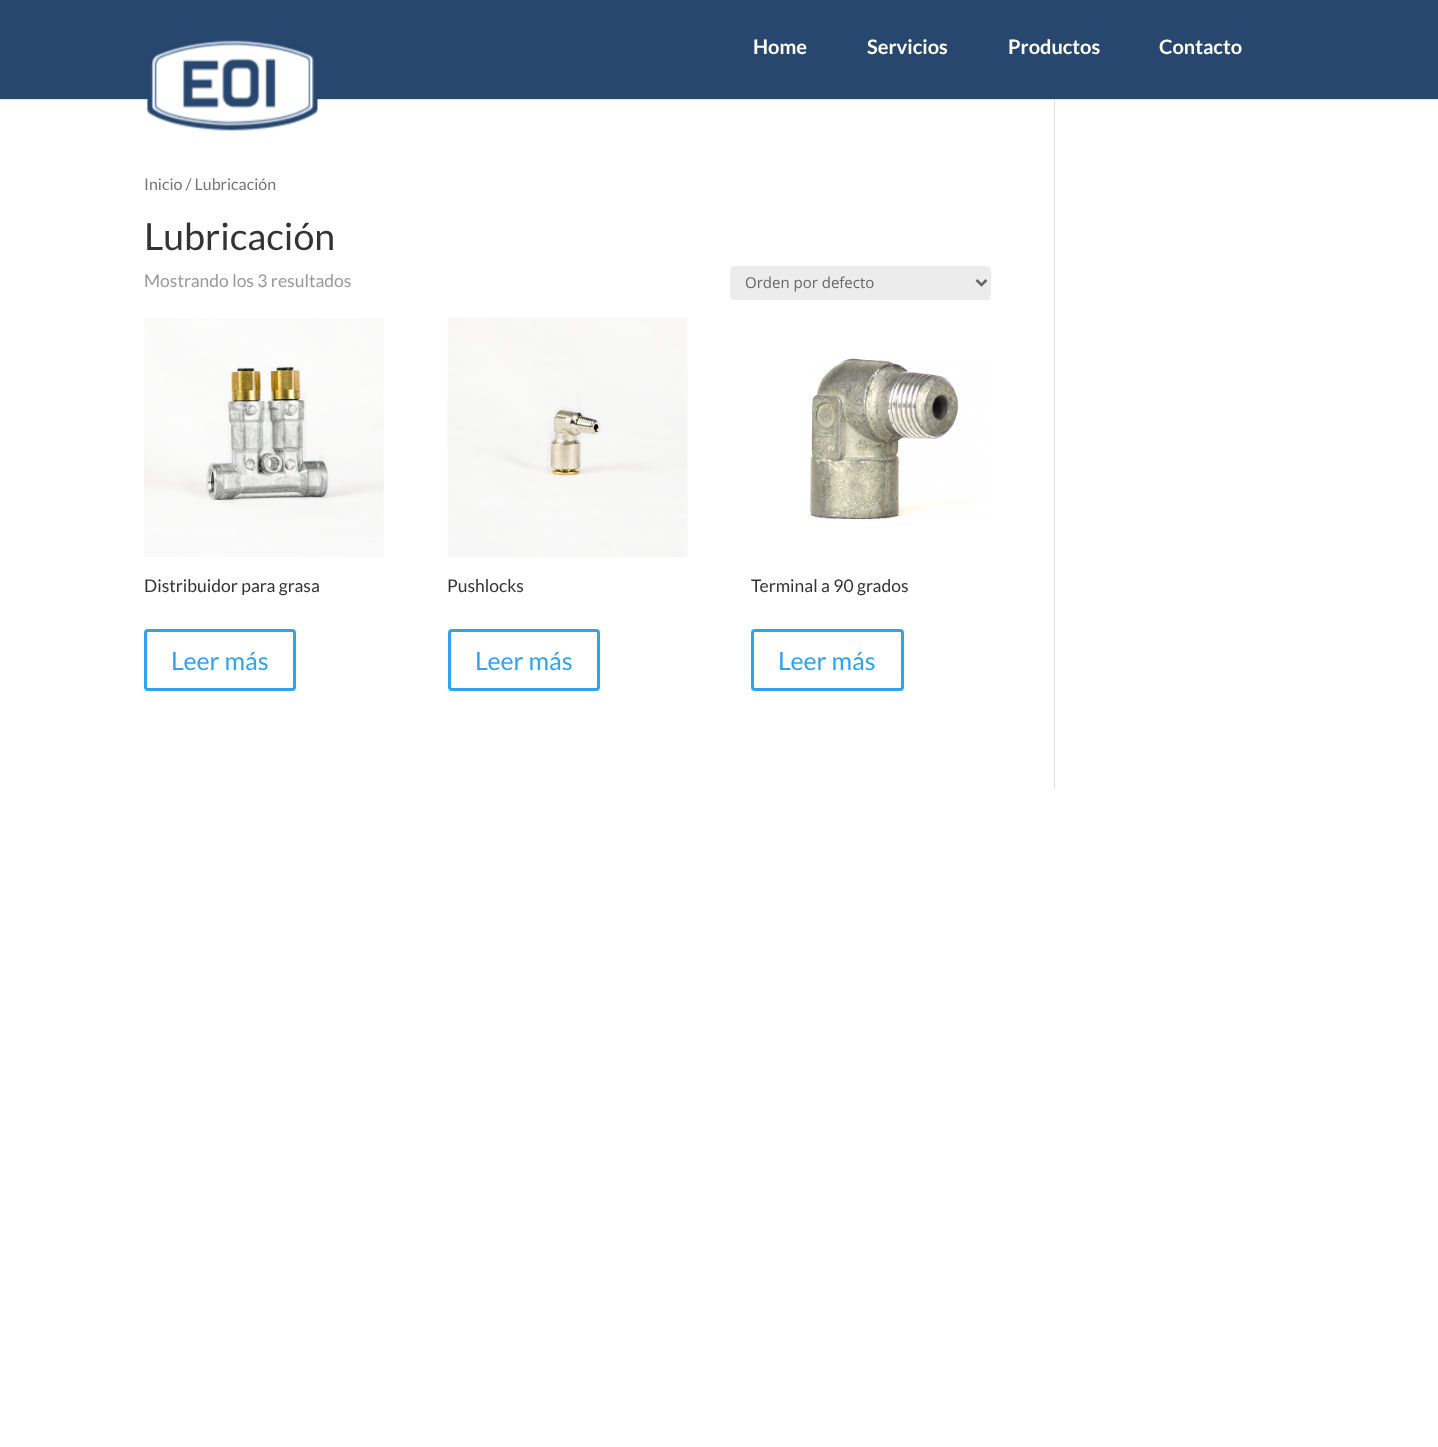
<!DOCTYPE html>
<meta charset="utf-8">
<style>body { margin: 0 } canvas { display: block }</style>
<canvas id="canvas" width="1438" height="1447"></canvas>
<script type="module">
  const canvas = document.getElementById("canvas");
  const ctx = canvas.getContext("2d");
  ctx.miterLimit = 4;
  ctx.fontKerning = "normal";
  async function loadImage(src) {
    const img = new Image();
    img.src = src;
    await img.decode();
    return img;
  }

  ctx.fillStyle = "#ffffff";
  ctx.fillRect(0, 0, 1438, 1447);
  ctx.fillStyle = "#e2e2e2";
  ctx.fillRect(1054, 98, 1, 692);
  ctx.fillStyle = "rgba(0, 0, 0, 0.1)";
  ctx.beginPath();
  ctx.moveTo(0, 99);
  ctx.lineTo(0, 100);
  ctx.lineTo(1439, 100);
  ctx.lineTo(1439, 1);
  ctx.lineTo(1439, 99);
  ctx.closePath();
  ctx.fill();
  ctx.fillStyle = "#27476f";
  ctx.fillRect(0, 0, 1438, 99);
  ctx.drawImage(await loadImage("img1.png"), 147, 40, 172, 91);
  ctx.font = "bold 20px Lato";
  ctx.fillStyle = "#ffffff";
  ctx.fillText("Home", 753, 54);
  ctx.fillText("Servicios", 867, 54);
  ctx.fillText("Productos", 1008, 54);
  ctx.fillText("Contacto", 1159, 54);
  ctx.font = "16px Lato";
  ctx.fillStyle = "#767676";
  ctx.fillText("Inicio / Lubricación", 144, 190);
  ctx.font = "37.5px Lato";
  ctx.fillStyle = "#333333";
  ctx.fillText("Lubricación", 144, 250);
  ctx.font = "17.5px Lato";
  ctx.fillStyle = "#999999";
  ctx.fillText("Mostrando los 3 resultados", 144, 287);
  ctx.fillStyle = "#ececec";
  ctx.beginPath();
  ctx.roundRect(730, 266, 261, 34, 4);
  ctx.fill();
  ctx.beginPath();
  ctx.moveTo(976.5, 280);
  ctx.lineTo(981.5, 285);
  ctx.lineTo(986.5, 280);
  ctx.strokeStyle = "#666666";
  ctx.lineWidth = 2.5;
  ctx.stroke();
  ctx.font = "15px Open Sans";
  ctx.fillStyle = "#666666";
  ctx.fillText("Orden por defecto", 745, 288);
  ctx.drawImage(await loadImage("img2.png"), 144, 318, 240, 239);
  ctx.font = "17.5px Lato";
  ctx.fillStyle = "#333333";
  ctx.fillText("Distribuidor para grasa", 144, 592);
  ctx.beginPath();
  ctx.roundRect(145.5, 630.5, 149, 59, 2.5);
  ctx.strokeStyle = "#2ea3f2";
  ctx.lineWidth = 3;
  ctx.stroke();
  ctx.font = "25px Lato";
  ctx.fillStyle = "#2ea3f2";
  ctx.fillText("Leer más", 171, 670);
  ctx.drawImage(await loadImage("img3.png"), 447, 317, 241, 241);
  ctx.font = "17.5px Lato";
  ctx.fillStyle = "#333333";
  ctx.fillText("Pushlocks", 447, 592);
  ctx.beginPath();
  ctx.roundRect(449.5, 630.5, 149, 59, 2.5);
  ctx.stroke();
  ctx.font = "25px Lato";
  ctx.fillStyle = "#2ea3f2";
  ctx.fillText("Leer más", 475, 670);
  ctx.drawImage(await loadImage("img4.png"), 809, 358, 181, 162);
  ctx.font = "17.5px Lato";
  ctx.fillStyle = "#333333";
  ctx.fillText("Terminal a 90 grados", 751, 592);
  ctx.beginPath();
  ctx.roundRect(752.5, 630.5, 150, 59, 2.5);
  ctx.stroke();
  ctx.font = "25px Lato";
  ctx.fillStyle = "#2ea3f2";
  ctx.fillText("Leer más", 778, 670);
</script>
